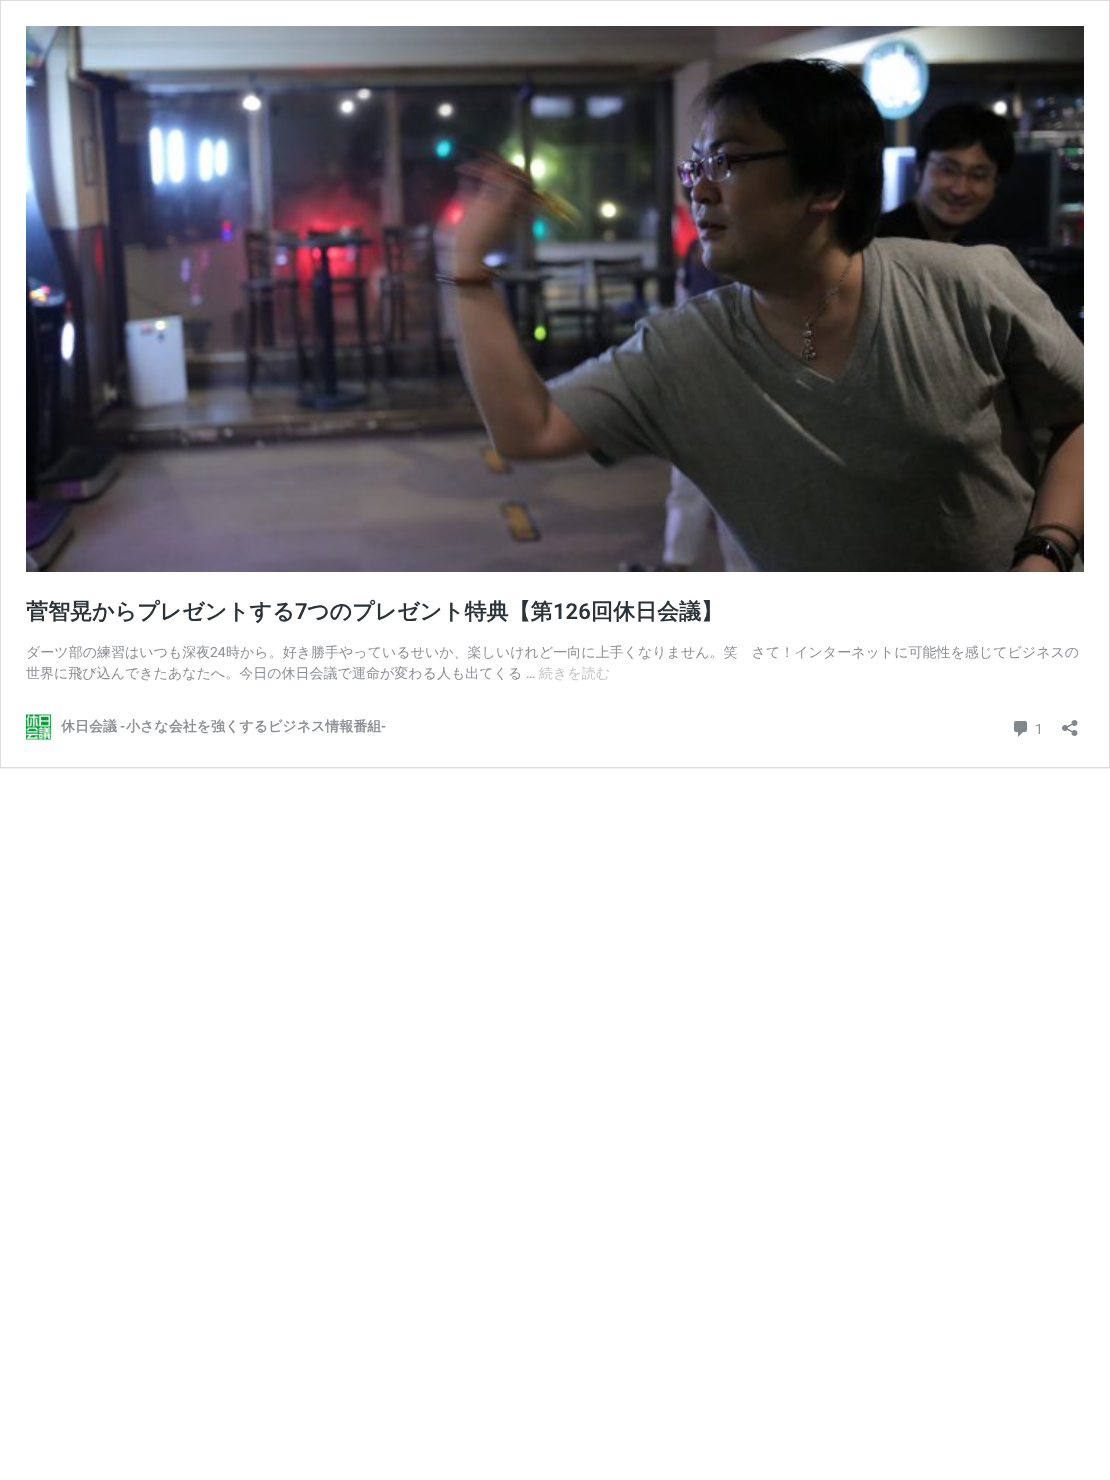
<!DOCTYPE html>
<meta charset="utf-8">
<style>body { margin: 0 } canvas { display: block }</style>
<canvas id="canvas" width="1110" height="1480"></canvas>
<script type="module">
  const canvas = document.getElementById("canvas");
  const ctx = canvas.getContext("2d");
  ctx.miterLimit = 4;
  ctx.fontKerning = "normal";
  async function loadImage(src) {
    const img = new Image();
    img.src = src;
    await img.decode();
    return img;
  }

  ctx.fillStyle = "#ffffff";
  ctx.fillRect(0, 0, 1110, 1480);
  ctx.save();
  ctx.beginPath();
  ctx.rect(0, 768, 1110, 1);
  ctx.clip();
  ctx.fillStyle = "rgba(0, 0, 0, 0.05)";
  ctx.filter = "blur(0.5px)";
  ctx.beginPath();
  ctx.rect(0, 1, 1110, 768);
  ctx.fill();
  ctx.filter = "none";
  ctx.restore();
  ctx.strokeStyle = "#dcdcde";
  ctx.strokeRect(0.5, 0.5, 1109, 767);
  ctx.drawImage(await loadImage("img1.png"), 26, 26, 1058, 546);
  ctx.font = "bold 22px WenQuanYi Zen Hei";
  ctx.fillStyle = "#2c3338";
  ctx.fillText("菅智晃からプレゼントする", 26, 619);
  ctx.font = "600 22px Roboto";
  ctx.fillText("7", 295, 619);
  ctx.font = "bold 22px WenQuanYi Zen Hei";
  ctx.fillText("つのプレゼント特典【第", 307, 619);
  ctx.font = "600 22px Roboto";
  ctx.fillText("126", 553, 619);
  ctx.font = "bold 22px WenQuanYi Zen Hei";
  ctx.fillText("回休日会議】", 591, 619);
  ctx.font = "500 14px WenQuanYi Zen Hei";
  ctx.fillStyle = "#8c8f94";
  ctx.fillText("ダーツ部の練習はいつも深夜", 26, 657);
  ctx.font = "14px Roboto";
  ctx.fillText("24", 210, 657);
  ctx.font = "500 14px WenQuanYi Zen Hei";
  ctx.fillText("時から。好き勝手やっているせいか、楽しいけれど一向に上手くなりません。笑　さて！インターネットに可能性を感じてビジネスの", 226, 657);
  ctx.fillText("世界に飛び込んできたあなたへ。今日の休日会議で運命が変わる人も出てくる", 26, 678);
  ctx.font = "14px Roboto";
  ctx.fillText("…", 526, 678);
  ctx.font = "500 14px WenQuanYi Zen Hei";
  ctx.fillStyle = "#c3c4c7";
  ctx.fillText("続きを読む", 539, 678);
  ctx.drawImage(await loadImage("img2.png"), 26, 714, 25, 26);
  ctx.font = "bold 14px WenQuanYi Zen Hei";
  ctx.fillStyle = "#8c8f94";
  ctx.fillText("休日会議", 61, 731);
  ctx.font = "600 14px Roboto";
  ctx.fillText("-", 120, 731);
  ctx.font = "bold 14px WenQuanYi Zen Hei";
  ctx.fillText("小さな会社を強くするビジネス情報番組", 126, 731);
  ctx.font = "600 14px Roboto";
  ctx.fillText("-", 381, 731);
  ctx.drawImage(await loadImage("img3.png"), 1014, 721, 13, 16);
  ctx.font = "14px Roboto";
  ctx.fillText("1", 1035, 734);
  ctx.drawImage(await loadImage("img4.png"), 1062, 720, 16, 16);
</script>
